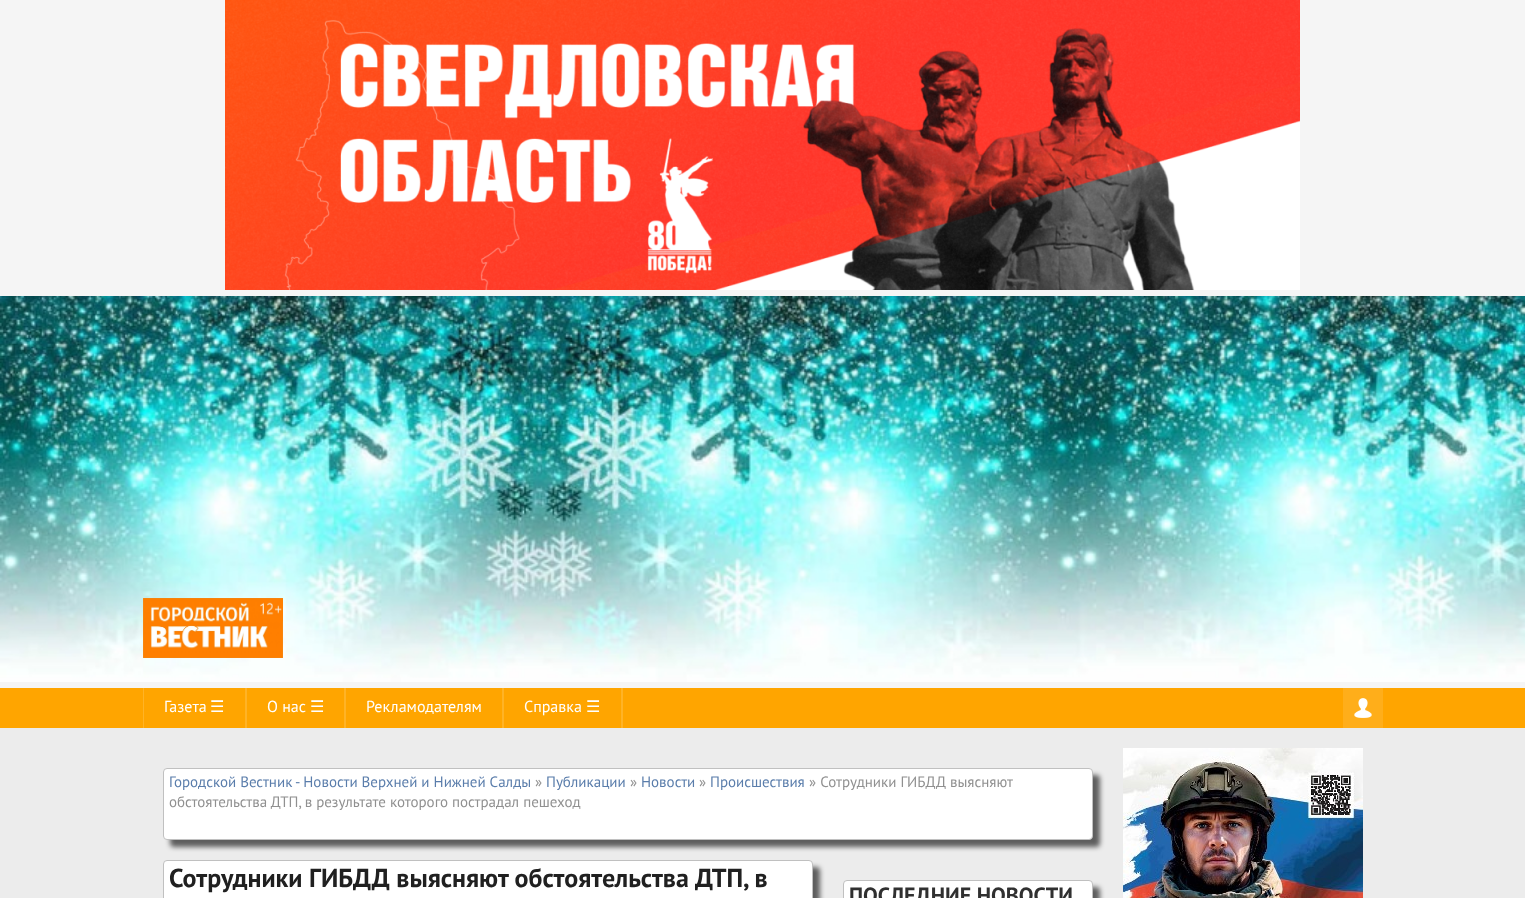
<!DOCTYPE html>
<meta charset="utf-8">
<style>body { margin: 0 } canvas { display: block }</style>
<canvas id="canvas" width="1525" height="898"></canvas>
<script type="module">
  const canvas = document.getElementById("canvas");
  const ctx = canvas.getContext("2d");
  ctx.miterLimit = 4;
  ctx.fontKerning = "normal";
  async function loadImage(src) {
    const img = new Image();
    img.src = src;
    await img.decode();
    return img;
  }

  ctx.fillStyle = "#ececec";
  ctx.fillRect(0, 0, 1525, 898);
  ctx.fillStyle = "#f5f5f5";
  ctx.fillRect(0, 0, 1525, 688);
  ctx.drawImage(await loadImage("img1.png"), 225, 0, 1075, 290);
  ctx.drawImage(await loadImage("img2.png"), 0, 296, 1525, 386);
  ctx.drawImage(await loadImage("img3.png"), 143, 598, 140, 60);
  ctx.fillStyle = "#ffa500";
  ctx.fillRect(0, 688, 1525, 40);
  ctx.fillStyle = "#ffb326";
  ctx.fillRect(245, 688, 2, 40);
  ctx.fillRect(143, 688, 1, 40);
  ctx.font = "16px PT Sans";
  ctx.fillStyle = "#ffffff";
  ctx.fillText("Газета", 164, 712);
  ctx.font = "16px DejaVu Sans";
  ctx.fillText("☰", 210, 712);
  ctx.fillStyle = "#ffb326";
  ctx.fillRect(344, 688, 2, 40);
  ctx.font = "16px PT Sans";
  ctx.fillStyle = "#ffffff";
  ctx.fillText("О нас", 267, 712);
  ctx.font = "16px DejaVu Sans";
  ctx.fillText("☰", 310, 712);
  ctx.fillStyle = "#ffb326";
  ctx.fillRect(502, 688, 2, 40);
  ctx.font = "16px PT Sans";
  ctx.fillStyle = "#ffffff";
  ctx.fillText("Рекламодателям", 366, 712);
  ctx.fillStyle = "#ffb326";
  ctx.fillRect(621, 688, 2, 40);
  ctx.fillStyle = "#ffffff";
  ctx.fillText("Справка", 524, 712);
  ctx.font = "16px DejaVu Sans";
  ctx.fillText("☰", 586, 712);
  ctx.fillStyle = "#ffae1a";
  ctx.fillRect(1343, 688, 40, 40);
  ctx.drawImage(await loadImage("img4.png"), 1354, 698, 18, 20);
  ctx.fillStyle = "rgba(0, 0, 0, 0.6)";
  ctx.filter = "blur(2.5px)";
  ctx.beginPath();
  ctx.roundRect(170, 775, 930, 72, 4);
  ctx.fill();
  ctx.filter = "none";
  ctx.fillStyle = "#ffffff";
  ctx.beginPath();
  ctx.roundRect(163.5, 768.5, 929, 71, 3.5);
  ctx.fill();
  ctx.strokeStyle = "#c0c0c0";
  ctx.stroke();
  ctx.font = "15px PT Sans";
  ctx.fillStyle = "#5a7dab";
  ctx.fillText("Городской Вестник - Новости Верхней и Нижней Салды", 169, 787);
  ctx.fillStyle = "#909090";
  ctx.fillText("»", 535, 787);
  ctx.fillStyle = "#5a7dab";
  ctx.fillText("Публикации", 546, 787);
  ctx.fillStyle = "#909090";
  ctx.fillText("»", 630, 787);
  ctx.fillStyle = "#5a7dab";
  ctx.fillText("Новости", 641, 787);
  ctx.fillStyle = "#909090";
  ctx.fillText("»", 699, 787);
  ctx.fillStyle = "#5a7dab";
  ctx.fillText("Происшествия", 710, 787);
  ctx.fillStyle = "#909090";
  ctx.fillText("» Сотрудники ГИБДД выясняют", 809, 787);
  ctx.fillText("обстоятельства ДТП, в результате которого пострадал пешеход", 169, 807);
  ctx.fillStyle = "rgba(0, 0, 0, 0.6)";
  ctx.filter = "blur(2.5px)";
  ctx.beginPath();
  ctx.roundRect(170, 867, 650, 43, 4);
  ctx.fill();
  ctx.filter = "none";
  ctx.fillStyle = "#ffffff";
  ctx.beginPath();
  ctx.roundRect(163.5, 860.5, 649, 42, 3.5);
  ctx.fill();
  ctx.stroke();
  ctx.font = "bold 26px PT Sans";
  ctx.fillStyle = "#202020";
  ctx.fillText("Сотрудники ГИБДД выясняют обстоятельства ДТП, в", 169, 887);
  ctx.fillStyle = "rgba(0, 0, 0, 0.6)";
  ctx.filter = "blur(2.5px)";
  ctx.beginPath();
  ctx.roundRect(850, 887, 250, 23, 4);
  ctx.fill();
  ctx.filter = "none";
  ctx.fillStyle = "#ffffff";
  ctx.beginPath();
  ctx.roundRect(843.5, 880.5, 249, 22, 3.5);
  ctx.fill();
  ctx.stroke();
  ctx.font = "bold 22px PT Sans";
  ctx.fillStyle = "#303030";
  ctx.fillText("ПОСЛЕДНИЕ НОВОСТИ", 849, 903);
  ctx.drawImage(await loadImage("img5.png"), 1123, 748, 240, 150);
</script>
